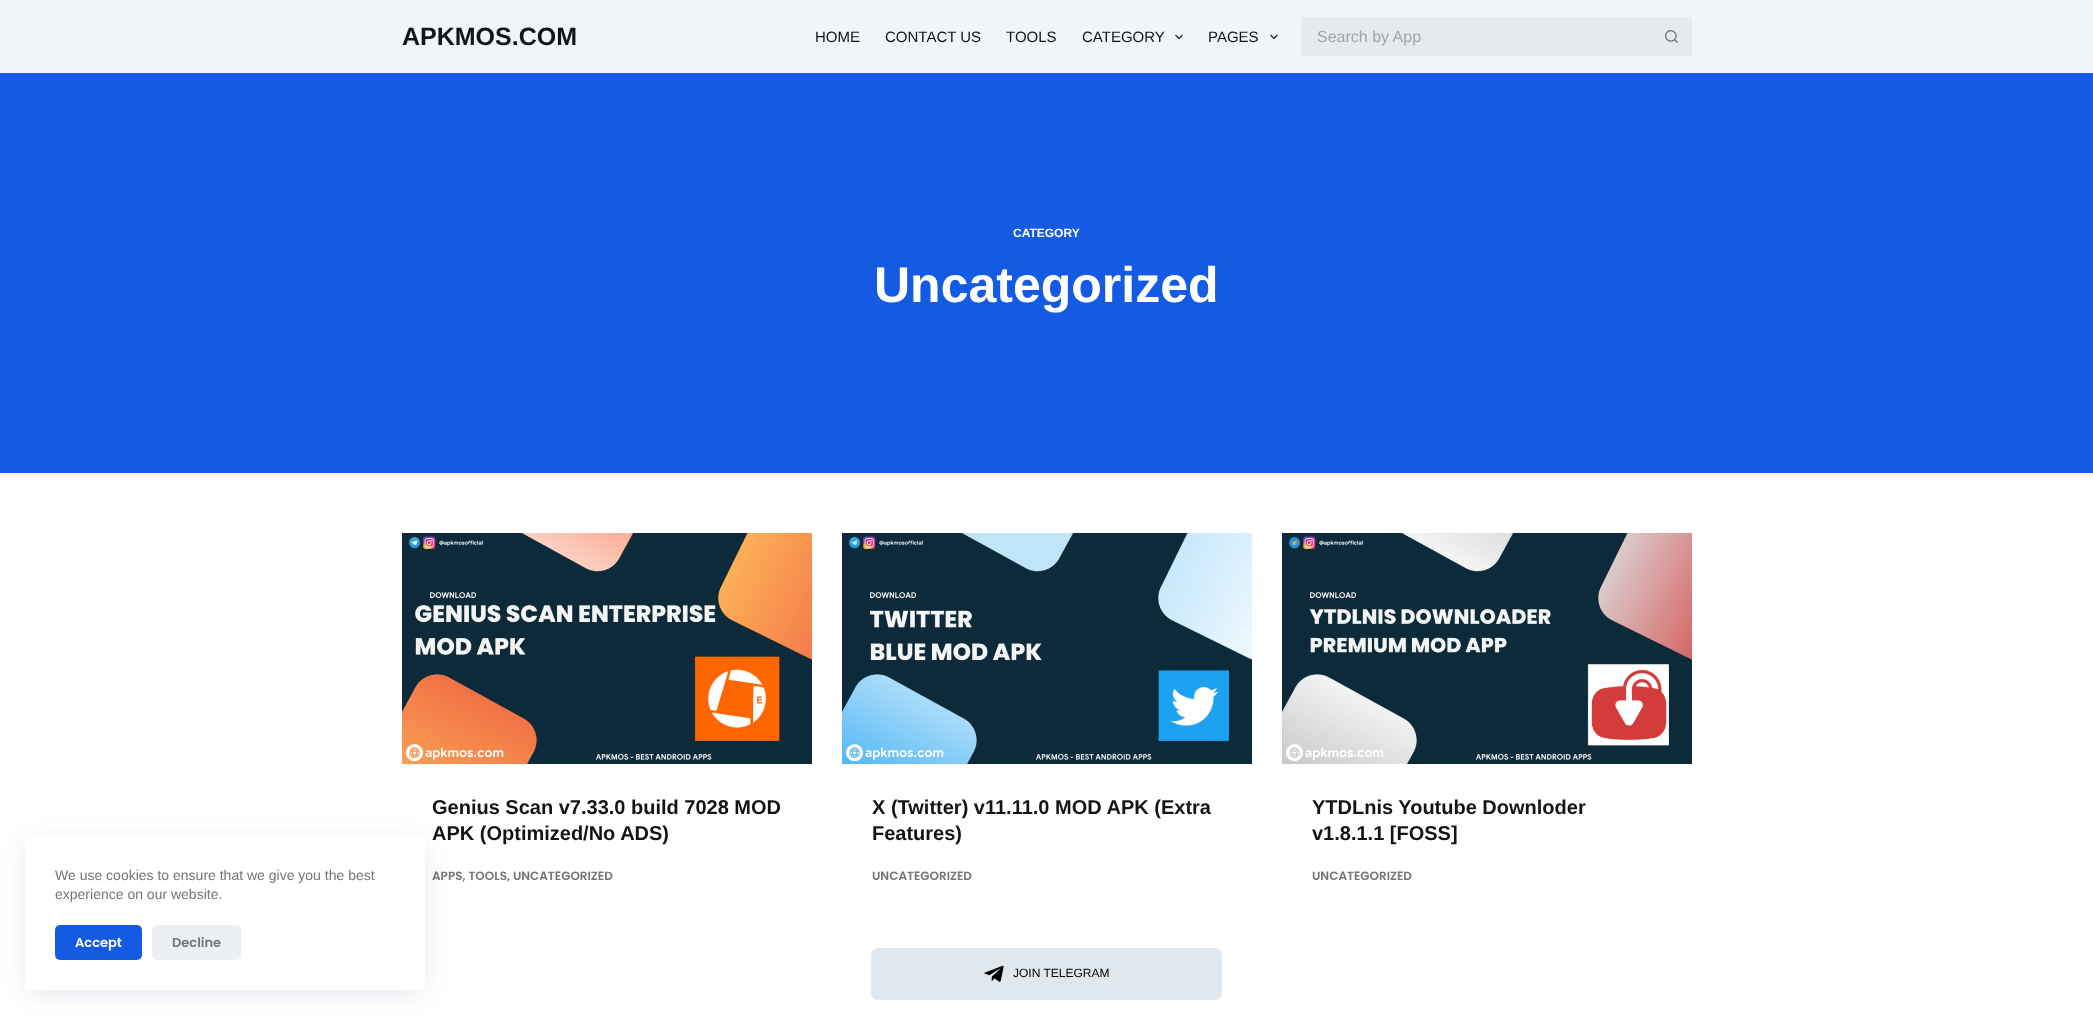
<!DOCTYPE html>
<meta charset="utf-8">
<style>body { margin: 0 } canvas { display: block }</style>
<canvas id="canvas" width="2093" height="1015"></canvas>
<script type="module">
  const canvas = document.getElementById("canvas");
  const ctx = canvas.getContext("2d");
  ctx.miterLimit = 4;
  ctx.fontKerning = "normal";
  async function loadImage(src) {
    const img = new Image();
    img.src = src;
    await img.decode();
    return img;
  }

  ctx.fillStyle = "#ffffff";
  ctx.fillRect(0, 0, 2093, 1015);
  ctx.fillStyle = "#f2f5f7";
  ctx.fillRect(0, 0, 2093, 73);
  ctx.font = "bold 25px Liberation Sans";
  ctx.fillStyle = "#111518";
  ctx.fillText("APKMOS.COM", 402, 45);
  ctx.font = "15px Liberation Sans";
  ctx.fillText("HOME", 815, 42);
  ctx.fillText("CONTACT US", 885, 42);
  ctx.fillText("TOOLS", 1006, 42);
  ctx.fillText("CATEGORY", 1082, 42);
  ctx.drawImage(await loadImage("img1.png"), 1175, 34, 8, 6);
  ctx.fillText("PAGES", 1208, 42);
  ctx.drawImage(await loadImage("img1.png"), 1270, 34, 8, 6);
  ctx.fillStyle = "#e7eaec";
  ctx.fillRect(1301, 17, 391, 39);
  ctx.font = "16px Liberation Sans";
  ctx.fillStyle = "#a3a4a5";
  ctx.fillText("Search by App", 1317, 42);
  ctx.drawImage(await loadImage("img2.png"), 1665, 30, 13, 13);
  ctx.fillStyle = "#145ae2";
  ctx.fillRect(0, 73, 2093, 400);
  ctx.font = "bold 12px Liberation Sans";
  ctx.fillStyle = "#ffffff";
  ctx.fillText("CATEGORY", 1013, 237);
  ctx.font = "bold 50px Liberation Sans";
  ctx.fillText("Uncategorized", 874, 302);
  ctx.drawImage(await loadImage("img3.png"), 402, 533, 410, 231);
  ctx.font = "bold 20px Liberation Sans";
  ctx.fillStyle = "#111518";
  ctx.fillText("Genius Scan v7.33.0 build 7028 MOD", 432, 814);
  ctx.fillText("APK (Optimized/No ADS)", 432, 840);
  ctx.font = "600 12px Poppins";
  ctx.fillStyle = "#757575";
  ctx.fillText("APPS, TOOLS, UNCATEGORIZED", 432, 880);
  ctx.drawImage(await loadImage("img4.png"), 842, 533, 410, 231);
  ctx.font = "bold 20px Liberation Sans";
  ctx.fillStyle = "#111518";
  ctx.fillText("X (Twitter) v11.11.0 MOD APK (Extra", 872, 814);
  ctx.fillText("Features)", 872, 840);
  ctx.font = "600 12px Poppins";
  ctx.fillStyle = "#757575";
  ctx.fillText("UNCATEGORIZED", 872, 880);
  ctx.drawImage(await loadImage("img5.png"), 1282, 533, 410, 231);
  ctx.font = "bold 20px Liberation Sans";
  ctx.fillStyle = "#111518";
  ctx.fillText("YTDLnis Youtube Downloder", 1312, 814);
  ctx.fillText("v1.8.1.1 [FOSS]", 1312, 840);
  ctx.font = "600 12px Poppins";
  ctx.fillStyle = "#757575";
  ctx.fillText("UNCATEGORIZED", 1312, 880);
  ctx.fillStyle = "rgba(34, 56, 101, 0.15)";
  ctx.filter = "blur(15px)";
  ctx.beginPath();
  ctx.rect(30, 846, 390, 144);
  ctx.fill();
  ctx.filter = "none";
  ctx.fillStyle = "#ffffff";
  ctx.beginPath();
  ctx.roundRect(25, 836, 400, 154, 3);
  ctx.fill();
  ctx.font = "14px Liberation Sans";
  ctx.fillStyle = "#757575";
  ctx.fillText("We use cookies to ensure that we give you the best", 55, 880);
  ctx.fillText("experience on our website.", 55, 899);
  ctx.fillStyle = "#145ae2";
  ctx.beginPath();
  ctx.roundRect(55, 925, 87, 35, 5);
  ctx.fill();
  ctx.font = "600 13px Poppins";
  ctx.fillStyle = "#ffffff";
  ctx.fillText("Accept", 75, 947);
  ctx.fillStyle = "#eceff3";
  ctx.beginPath();
  ctx.roundRect(152, 925, 89, 35, 5);
  ctx.fill();
  ctx.fillStyle = "#757575";
  ctx.fillText("Decline", 172, 947);
  ctx.fillStyle = "#e1e8ed";
  ctx.beginPath();
  ctx.roundRect(871, 948, 351, 52, 7);
  ctx.fill();
  ctx.drawImage(await loadImage("img6.png"), 984, 965, 20, 17);
  ctx.font = "12px Liberation Sans";
  ctx.fillStyle = "#000000";
  ctx.fillText("JOIN TELEGRAM", 1013, 977);
</script>
